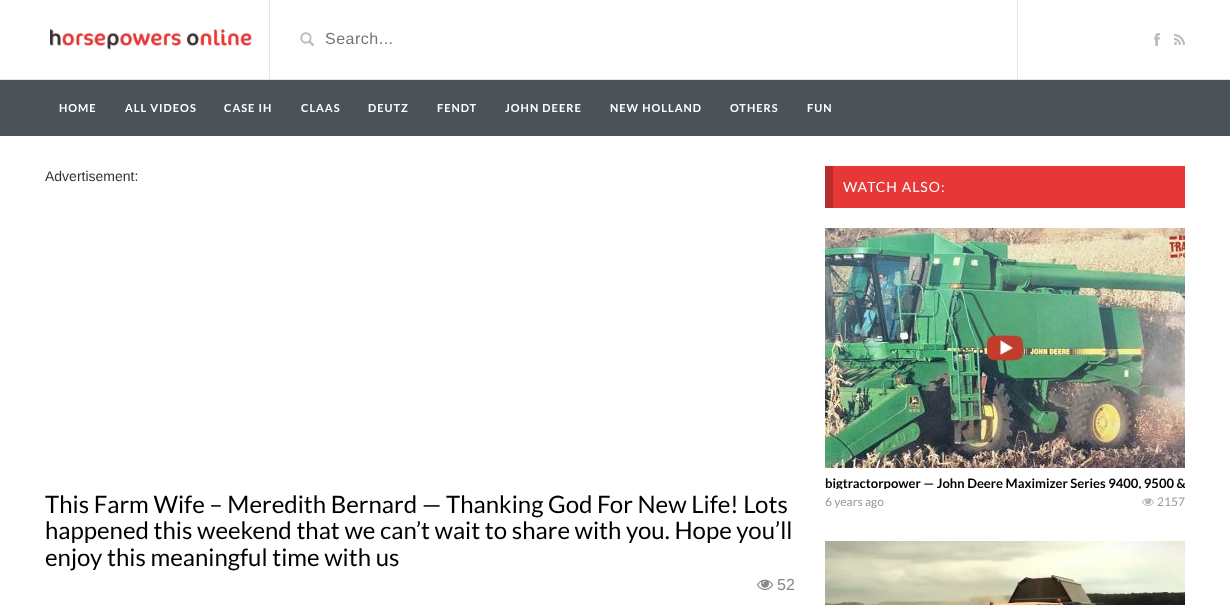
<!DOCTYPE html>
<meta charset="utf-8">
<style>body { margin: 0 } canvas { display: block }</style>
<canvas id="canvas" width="1230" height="605"></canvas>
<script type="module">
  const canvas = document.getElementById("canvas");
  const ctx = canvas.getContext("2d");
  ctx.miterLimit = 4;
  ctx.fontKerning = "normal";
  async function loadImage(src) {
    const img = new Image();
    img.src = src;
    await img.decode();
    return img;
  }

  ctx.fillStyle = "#ffffff";
  ctx.fillRect(0, 0, 1230, 605);
  ctx.fillStyle = "#e5e5e5";
  ctx.fillRect(0, 79, 1230, 1);
  ctx.fillRect(269, 0, 1, 79);
  ctx.drawImage(await loadImage("img1.png"), 50, 29, 202, 21);
  ctx.drawImage(await loadImage("img2.png"), 300, 32, 15, 15);
  ctx.letterSpacing = "0.5px";
  ctx.font = "16px Liberation Sans";
  ctx.fillStyle = "#757575";
  ctx.fillText("Search...", 325, 44);
  ctx.fillStyle = "#e5e5e5";
  ctx.fillRect(1017, 0, 1, 79);
  ctx.drawImage(await loadImage("img3.png"), 1154, 33, 6, 13);
  ctx.drawImage(await loadImage("img4.png"), 1174, 34, 11, 11);
  ctx.fillStyle = "#4c5358";
  ctx.fillRect(0, 80, 1230, 56);
  ctx.letterSpacing = "1px";
  ctx.font = "bold 11px Lato";
  ctx.fillStyle = "#ffffff";
  ctx.fillText("HOME", 59, 112);
  ctx.fillText("ALL VIDEOS", 125, 112);
  ctx.fillText("CASE IH", 224, 112);
  ctx.fillText("CLAAS", 301, 112);
  ctx.fillText("DEUTZ", 368, 112);
  ctx.fillText("FENDT", 437, 112);
  ctx.fillText("JOHN DEERE", 505, 112);
  ctx.fillText("NEW HOLLAND", 610, 112);
  ctx.fillText("OTHERS", 730, 112);
  ctx.fillText("FUN", 807, 112);
  ctx.letterSpacing = "0px";
  ctx.font = "14px Liberation Sans";
  ctx.fillStyle = "#333333";
  ctx.fillText("Advertisement:", 45, 181);
  ctx.font = "24px Lato";
  ctx.fillStyle = "#000000";
  ctx.fillText("This Farm Wife – Meredith Bernard — Thanking God For New Life! Lots", 45, 513);
  ctx.fillText("happened this weekend that we can’t wait to share with you. Hope you’ll", 45, 539);
  ctx.fillText("enjoy this meaningful time with us", 45, 566);
  ctx.drawImage(await loadImage("img5.png"), 757, 579, 16, 11);
  ctx.font = "16px Liberation Sans";
  ctx.fillStyle = "#888888";
  ctx.fillText("52", 777, 590);
  ctx.fillStyle = "#e73737";
  ctx.fillRect(833, 166, 352, 42);
  ctx.fillStyle = "#b92c2c";
  ctx.fillRect(825, 166, 8, 42);
  ctx.letterSpacing = "1px";
  ctx.font = "14px Lato";
  ctx.fillStyle = "#ffffff";
  ctx.fillText("WATCH ALSO:", 843, 192);
  ctx.drawImage(await loadImage("img6.png"), 825, 228, 360, 240);
  ctx.save();
  ctx.beginPath();
  ctx.rect(825, 473, 360, 16);
  ctx.clip();
  ctx.letterSpacing = "0px";
  ctx.font = "bold 13px Lato";
  ctx.fillStyle = "#000000";
  ctx.fillText("bigtractorpower — John Deere Maximizer Series 9400, 9500 &", 825, 488);
  ctx.restore();
  ctx.letterSpacing = "0px";
  ctx.font = "12px Lato";
  ctx.fillStyle = "#999999";
  ctx.fillText("6 years ago", 825, 506);
  ctx.drawImage(await loadImage("img7.png"), 1142, 498, 12, 8);
  ctx.fillText("2157", 1157, 506);
  ctx.drawImage(await loadImage("img8.png"), 825, 541, 360, 64);
</script>
